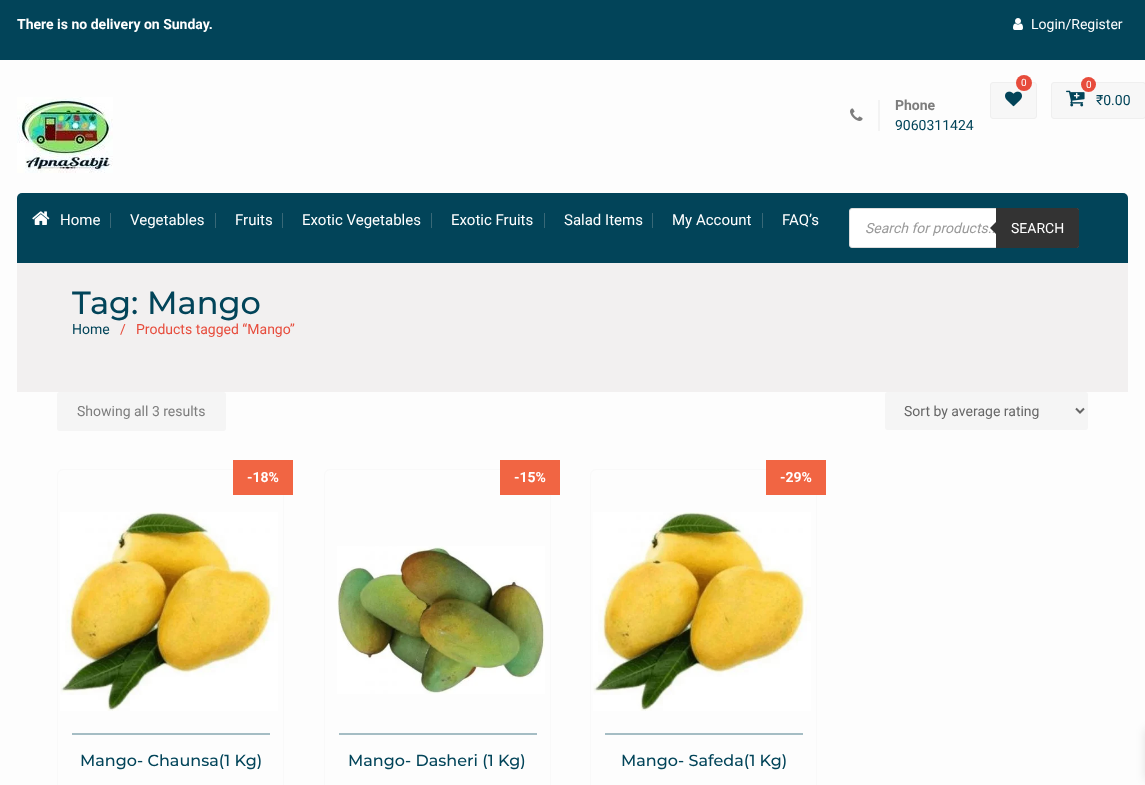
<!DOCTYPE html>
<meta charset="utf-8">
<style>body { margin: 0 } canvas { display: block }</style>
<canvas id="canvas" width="1145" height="785"></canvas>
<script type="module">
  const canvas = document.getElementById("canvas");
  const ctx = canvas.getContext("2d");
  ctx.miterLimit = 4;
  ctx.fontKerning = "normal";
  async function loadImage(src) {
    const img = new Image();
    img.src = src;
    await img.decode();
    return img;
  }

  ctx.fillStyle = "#fdfdfd";
  ctx.fillRect(0, 0, 1145, 785);
  ctx.fillStyle = "#024459";
  ctx.fillRect(0, 0, 1145, 60);
  ctx.font = "bold 14px Roboto";
  ctx.fillStyle = "#ffffff";
  ctx.fillText("There is no delivery on Sunday.", 17, 29);
  ctx.drawImage(await loadImage("img1.png"), 1013, 18, 10, 12);
  ctx.font = "14px Roboto";
  ctx.fillText("Login/Register", 1031, 29);
  ctx.drawImage(await loadImage("img2.png"), 17, 97, 96, 76);
  ctx.fillStyle = "#f7f7f7";
  ctx.beginPath();
  ctx.roundRect(990.5, 82.5, 46, 36, 2.5);
  ctx.fill();
  ctx.strokeStyle = "#efefef";
  ctx.stroke();
  ctx.fillStyle = "#e74c3c";
  ctx.beginPath();
  ctx.arc(1024, 83, 8, 0, Math.PI * 2);
  ctx.fill();
  ctx.font = "10px Roboto";
  ctx.fillStyle = "#ffffff";
  ctx.fillText("0", 1021, 86);
  ctx.drawImage(await loadImage("img3.png"), 1005, 91, 17, 16);
  ctx.fillStyle = "#f7f7f7";
  ctx.beginPath();
  ctx.roundRect(1051.5, 82.5, 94, 36, 2.5);
  ctx.fill();
  ctx.stroke();
  ctx.drawImage(await loadImage("img4.png"), 1066, 90, 19, 17);
  ctx.fillStyle = "#e74c3c";
  ctx.beginPath();
  ctx.arc(1088.5, 84.5, 7.5, 0, Math.PI * 2);
  ctx.fill();
  ctx.fillStyle = "#ffffff";
  ctx.fillText("0", 1086, 88);
  ctx.font = "14px Roboto";
  ctx.fillStyle = "#024459";
  ctx.fillText("₹0.00", 1096, 105);
  ctx.fillStyle = "#f3f3f3";
  ctx.fillRect(878, 100, 2, 31);
  ctx.drawImage(await loadImage("img5.png"), 850, 108, 13, 13);
  ctx.font = "bold 14px Roboto";
  ctx.fillStyle = "#7d7d7d";
  ctx.fillText("Phone", 895, 110);
  ctx.font = "14px Roboto";
  ctx.fillStyle = "#024459";
  ctx.fillText("9060311424", 895, 130);
  ctx.beginPath();
  ctx.roundRect(17, 193, 1111, 70, [5, 5, 0, 0]);
  ctx.fill();
  ctx.drawImage(await loadImage("img6.png"), 32, 211, 18, 14);
  ctx.font = "15px Roboto";
  ctx.fillStyle = "#ffffff";
  ctx.fillText("Home", 60, 225);
  ctx.fillStyle = "#386877";
  ctx.fillRect(110, 213, 1, 15);
  ctx.fillStyle = "#ffffff";
  ctx.fillText("Vegetables", 130, 225);
  ctx.fillStyle = "#386877";
  ctx.fillRect(215, 213, 1, 15);
  ctx.fillStyle = "#ffffff";
  ctx.fillText("Fruits", 235, 225);
  ctx.fillStyle = "#386877";
  ctx.fillRect(282, 213, 1, 15);
  ctx.fillStyle = "#ffffff";
  ctx.fillText("Exotic Vegetables", 302, 225);
  ctx.fillStyle = "#386877";
  ctx.fillRect(431, 213, 1, 15);
  ctx.fillStyle = "#ffffff";
  ctx.fillText("Exotic Fruits", 451, 225);
  ctx.fillStyle = "#386877";
  ctx.fillRect(544, 213, 1, 15);
  ctx.fillStyle = "#ffffff";
  ctx.fillText("Salad Items", 564, 225);
  ctx.fillStyle = "#386877";
  ctx.fillRect(652, 213, 1, 15);
  ctx.fillStyle = "#ffffff";
  ctx.fillText("My Account", 672, 225);
  ctx.fillStyle = "#386877";
  ctx.fillRect(762, 213, 1, 15);
  ctx.fillStyle = "#ffffff";
  ctx.fillText("FAQ’s", 782, 225);
  ctx.beginPath();
  ctx.roundRect(849.5, 208.5, 229, 39, 2.5);
  ctx.fill();
  ctx.strokeStyle = "#dddddd";
  ctx.stroke();
  ctx.font = "italic 14px Roboto";
  ctx.fillStyle = "#999999";
  ctx.fillText("Search for products..", 865, 233);
  ctx.fillStyle = "#333333";
  ctx.beginPath();
  ctx.roundRect(996, 208, 83, 40, [0, 2, 2, 0]);
  ctx.fill();
  ctx.beginPath();
  ctx.moveTo(998, 220);
  ctx.lineTo(998, 236);
  ctx.lineTo(990, 228);
  ctx.closePath();
  ctx.fill();
  ctx.font = "14px Roboto";
  ctx.fillStyle = "#ffffff";
  ctx.fillText("SEARCH", 1011, 233);
  ctx.fillStyle = "#f2f0f0";
  ctx.fillRect(17, 263, 1111, 129);
  ctx.font = "500 32px Montserrat";
  ctx.fillStyle = "#024459";
  ctx.fillText("Tag: Mango", 72, 314);
  ctx.font = "14px Roboto";
  ctx.fillText("Home", 72, 334);
  ctx.fillStyle = "#e74c3c";
  ctx.fillText("/", 120, 334);
  ctx.fillText("Products tagged “Mango”", 136, 334);
  ctx.fillStyle = "#f5f5f5";
  ctx.beginPath();
  ctx.roundRect(57, 392, 169, 39, 3);
  ctx.fill();
  ctx.fillStyle = "#7d7d7d";
  ctx.fillText("Showing all 3 results", 77, 416);
  ctx.fillStyle = "#f5f5f5";
  ctx.beginPath();
  ctx.roundRect(885, 392, 203, 38, 3);
  ctx.fill();
  ctx.beginPath();
  ctx.moveTo(1076, 408.5);
  ctx.lineTo(1080, 412.5);
  ctx.lineTo(1084, 408.5);
  ctx.strokeStyle = "#666666";
  ctx.lineWidth = 2;
  ctx.stroke();
  ctx.fillStyle = "#666666";
  ctx.fillText("Sort by average rating", 904, 416);
  ctx.beginPath();
  ctx.moveTo(63, 469.5);
  ctx.lineTo(277, 469.5);
  ctx.bezierCurveTo(280.5, 469.5, 283.5, 472.5, 283.5, 476);
  ctx.lineTo(283.5, 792.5);
  ctx.lineTo(57.5, 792.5);
  ctx.lineTo(57.5, 475);
  ctx.bezierCurveTo(57.5, 472, 60, 469.5, 63, 469.5);
  ctx.closePath();
  ctx.strokeStyle = "#f9f9f9";
  ctx.lineWidth = 1;
  ctx.stroke();
  ctx.fillStyle = "#f16543";
  ctx.fillRect(233, 460, 60, 35);
  ctx.font = "bold 14px Roboto";
  ctx.fillStyle = "#ffffff";
  ctx.fillText("-18%", 247, 482);
  ctx.drawImage(await loadImage("img7.png"), 60, 512, 218, 199);
  ctx.fillStyle = "#a5bdc4";
  ctx.fillRect(72, 733, 198, 2);
  ctx.font = "500 16px Montserrat";
  ctx.fillStyle = "#024459";
  ctx.fillText("Mango- Chaunsa(1 Kg)", 80, 766);
  ctx.beginPath();
  ctx.moveTo(330, 469.5);
  ctx.lineTo(544, 469.5);
  ctx.bezierCurveTo(547.5, 469.5, 550.5, 472.5, 550.5, 476);
  ctx.lineTo(550.5, 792.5);
  ctx.lineTo(324.5, 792.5);
  ctx.lineTo(324.5, 475);
  ctx.bezierCurveTo(324.5, 472, 327, 469.5, 330, 469.5);
  ctx.closePath();
  ctx.stroke();
  ctx.fillStyle = "#f16543";
  ctx.fillRect(500, 460, 60, 35);
  ctx.font = "bold 14px Roboto";
  ctx.fillStyle = "#ffffff";
  ctx.fillText("-15%", 514, 482);
  ctx.drawImage(await loadImage("img8.png"), 337, 546, 208, 148);
  ctx.fillStyle = "#a5bdc4";
  ctx.fillRect(339, 733, 198, 2);
  ctx.font = "500 16px Montserrat";
  ctx.fillStyle = "#024459";
  ctx.fillText("Mango- Dasheri (1 Kg)", 348, 766);
  ctx.beginPath();
  ctx.moveTo(596, 469.5);
  ctx.lineTo(810, 469.5);
  ctx.bezierCurveTo(813.5, 469.5, 816.5, 472.5, 816.5, 476);
  ctx.lineTo(816.5, 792.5);
  ctx.lineTo(590.5, 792.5);
  ctx.lineTo(590.5, 475);
  ctx.bezierCurveTo(590.5, 472, 593, 469.5, 596, 469.5);
  ctx.closePath();
  ctx.stroke();
  ctx.fillStyle = "#f16543";
  ctx.fillRect(766, 460, 60, 35);
  ctx.font = "bold 14px Roboto";
  ctx.fillStyle = "#ffffff";
  ctx.fillText("-29%", 780, 482);
  ctx.drawImage(await loadImage("img9.png"), 593, 512, 218, 199);
  ctx.fillStyle = "#a5bdc4";
  ctx.fillRect(605, 733, 198, 2);
  ctx.font = "500 16px Montserrat";
  ctx.fillStyle = "#024459";
  ctx.fillText("Mango- Safeda(1 Kg)", 621, 766);
  ctx.fillStyle = "rgba(0, 0, 0, 0.1)";
  ctx.filter = "blur(5px)";
  ctx.beginPath();
  ctx.rect(1145, 729, 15, 51);
  ctx.fill();
  ctx.filter = "none";
</script>
